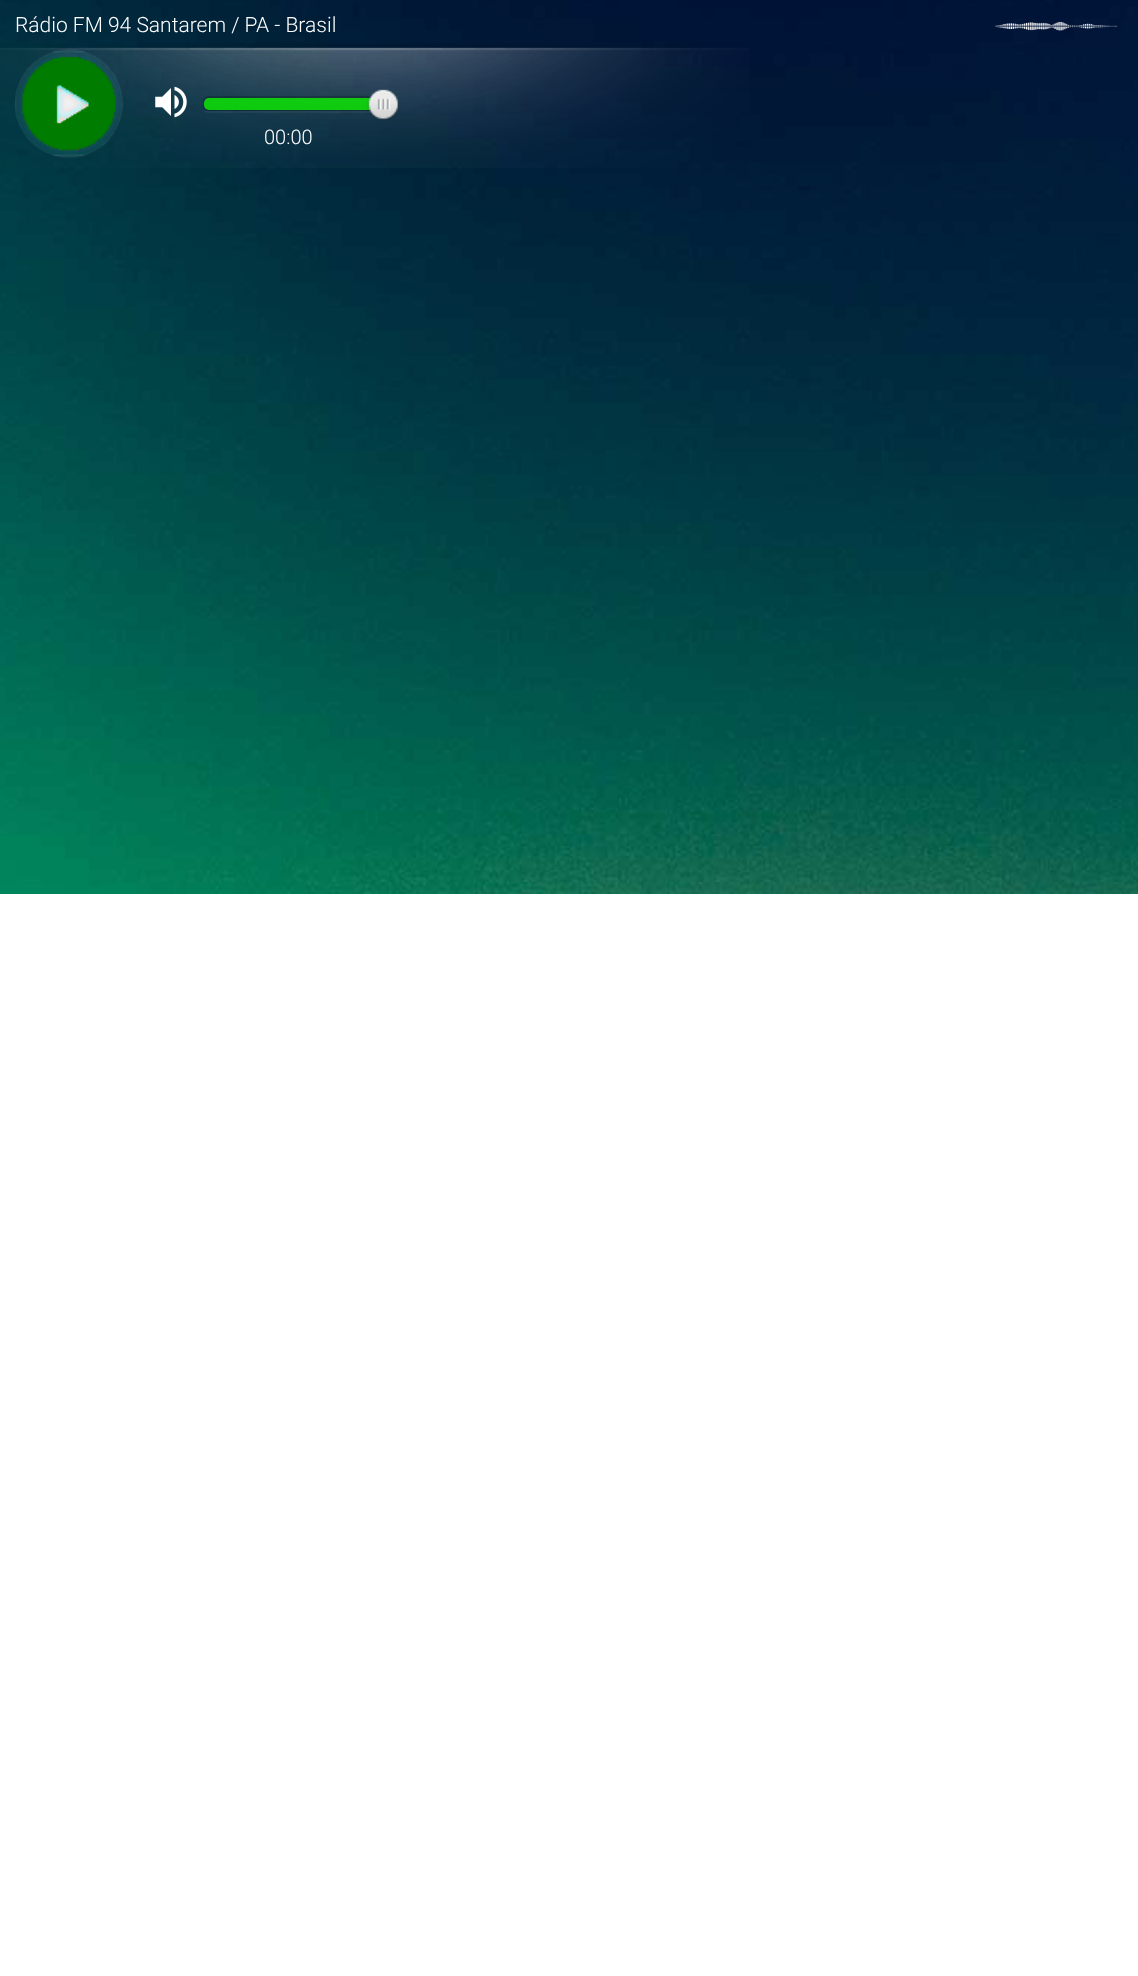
<!DOCTYPE html>
<meta charset="utf-8">
<style>body { margin: 0 } canvas { display: block }</style>
<canvas id="canvas" width="1138" height="1976"></canvas>
<script type="module">
  const canvas = document.getElementById("canvas");
  const ctx = canvas.getContext("2d");
  ctx.miterLimit = 4;
  ctx.fontKerning = "normal";
  async function loadImage(src) {
    const img = new Image();
    img.src = src;
    await img.decode();
    return img;
  }

  ctx.fillStyle = "#ffffff";
  ctx.fillRect(0, 0, 1138, 1976);
  ctx.drawImage(await loadImage("img1.png"), 0, 0, 1138, 894);
  ctx.font = "300 21px Roboto";
  ctx.fillText("Rádio FM 94 Santarem / PA - Brasil", 15, 32);
  ctx.drawImage(await loadImage("img2.png"), 995, 21, 122, 10);
  ctx.drawImage(await loadImage("img3.png"), 0, 43, 750, 125);
  ctx.drawImage(await loadImage("img4.png"), 15, 49, 108, 109);
  ctx.drawImage(await loadImage("img5.png"), 155, 86, 32, 32);
  ctx.fillStyle = "rgba(255, 255, 255, 0.05)";
  ctx.beginPath();
  ctx.moveTo(203, 109);
  ctx.bezierCurveTo(203, 111, 205, 113, 208, 113);
  ctx.lineTo(388, 113);
  ctx.bezierCurveTo(391, 113, 393, 111, 393, 108);
  ctx.lineTo(393, 106);
  ctx.bezierCurveTo(393, 109, 391, 111, 388, 111);
  ctx.lineTo(207, 111);
  ctx.bezierCurveTo(205, 111, 204, 110, 203, 109);
  ctx.closePath();
  ctx.fill();
  ctx.fillStyle = "rgba(0, 0, 0, 0.2)";
  ctx.beginPath();
  ctx.roundRect(203, 96, 190, 15, 5);
  ctx.fill();
  ctx.fillStyle = "rgba(13, 255, 0, 0.75)";
  ctx.beginPath();
  ctx.roundRect(204, 98, 188, 12, 5);
  ctx.fill();
  ctx.drawImage(await loadImage("img6.png"), 367, 89, 32, 31);
  ctx.font = "300 20px Roboto";
  ctx.fillStyle = "#ffffff";
  ctx.fillText("00:00", 264, 144);
</script>
